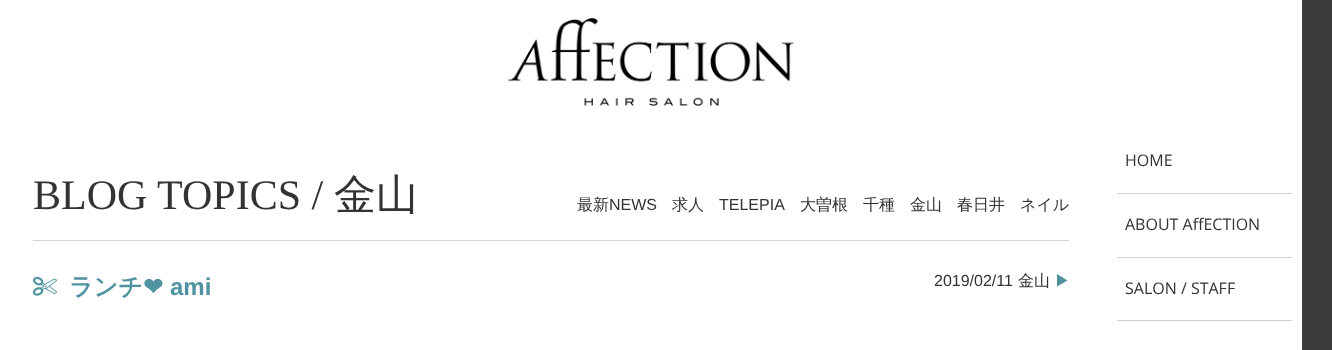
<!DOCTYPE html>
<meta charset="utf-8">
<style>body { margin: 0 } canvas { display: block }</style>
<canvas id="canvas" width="1332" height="350"></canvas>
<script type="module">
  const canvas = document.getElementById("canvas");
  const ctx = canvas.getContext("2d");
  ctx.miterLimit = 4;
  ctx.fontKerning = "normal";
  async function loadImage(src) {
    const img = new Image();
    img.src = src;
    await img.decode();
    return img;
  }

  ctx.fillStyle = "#ffffff";
  ctx.fillRect(0, 0, 1332, 350);
  ctx.fillStyle = "#3c3c3c";
  ctx.fillRect(1302, 0, 30, 350);
  ctx.drawImage(await loadImage("img1.png"), 508, 18, 286, 88);
  ctx.font = "42px Liberation Serif";
  ctx.fillStyle = "#333333";
  ctx.fillText("BLOG TOPICS /", 33, 209);
  ctx.font = "500 42px WenQuanYi Zen Hei";
  ctx.fillText("金山", 334, 209);
  ctx.font = "500 16px WenQuanYi Zen Hei";
  ctx.fillText("最新", 577, 210);
  ctx.font = "16px Liberation Sans";
  ctx.fillText("NEWS", 609, 210);
  ctx.font = "500 16px WenQuanYi Zen Hei";
  ctx.fillText("求人", 672, 210);
  ctx.font = "16px Liberation Sans";
  ctx.fillText("TELEPIA", 719, 210);
  ctx.font = "500 16px WenQuanYi Zen Hei";
  ctx.fillText("大曽根", 800, 210);
  ctx.fillText("千種", 863, 210);
  ctx.fillText("金山", 910, 210);
  ctx.fillText("春日井", 957, 210);
  ctx.fillText("ネイル", 1020, 210);
  ctx.fillStyle = "#d4d4d4";
  ctx.fillRect(33, 240, 1036, 1);
  ctx.drawImage(await loadImage("img2.png"), 33, 276, 24, 20);
  ctx.font = "bold 24px WenQuanYi Zen Hei";
  ctx.fillStyle = "#4f93a0";
  ctx.fillText("ランチ", 69, 295);
  ctx.font = "bold 24px DejaVu Sans";
  ctx.fillText("❤︎", 143, 295);
  ctx.font = "bold 24px Liberation Sans";
  ctx.fillText("ami", 170, 295);
  ctx.font = "16px Liberation Sans";
  ctx.fillStyle = "#333333";
  ctx.fillText("2019/02/11", 934, 286);
  ctx.font = "500 16px WenQuanYi Zen Hei";
  ctx.fillText("金山", 1018, 286);
  ctx.fillStyle = "#4f93a0";
  ctx.beginPath();
  ctx.moveTo(1067.5, 280.5);
  ctx.lineTo(1057, 286.5);
  ctx.lineTo(1057, 274);
  ctx.closePath();
  ctx.fill();
  ctx.fillStyle = "#d2d2d2";
  ctx.fillRect(1117, 193, 175, 1);
  ctx.font = "16px Open Sans";
  ctx.fillStyle = "#333333";
  ctx.fillText("HOME", 1125, 166);
  ctx.fillStyle = "#d2d2d2";
  ctx.fillRect(1117, 257, 175, 1);
  ctx.fillStyle = "#333333";
  ctx.fillText("ABOUT AffECTION", 1125, 230);
  ctx.fillStyle = "#d2d2d2";
  ctx.fillRect(1117, 320, 175, 1);
  ctx.fillStyle = "#333333";
  ctx.fillText("SALON / STAFF", 1125, 294);
</script>
